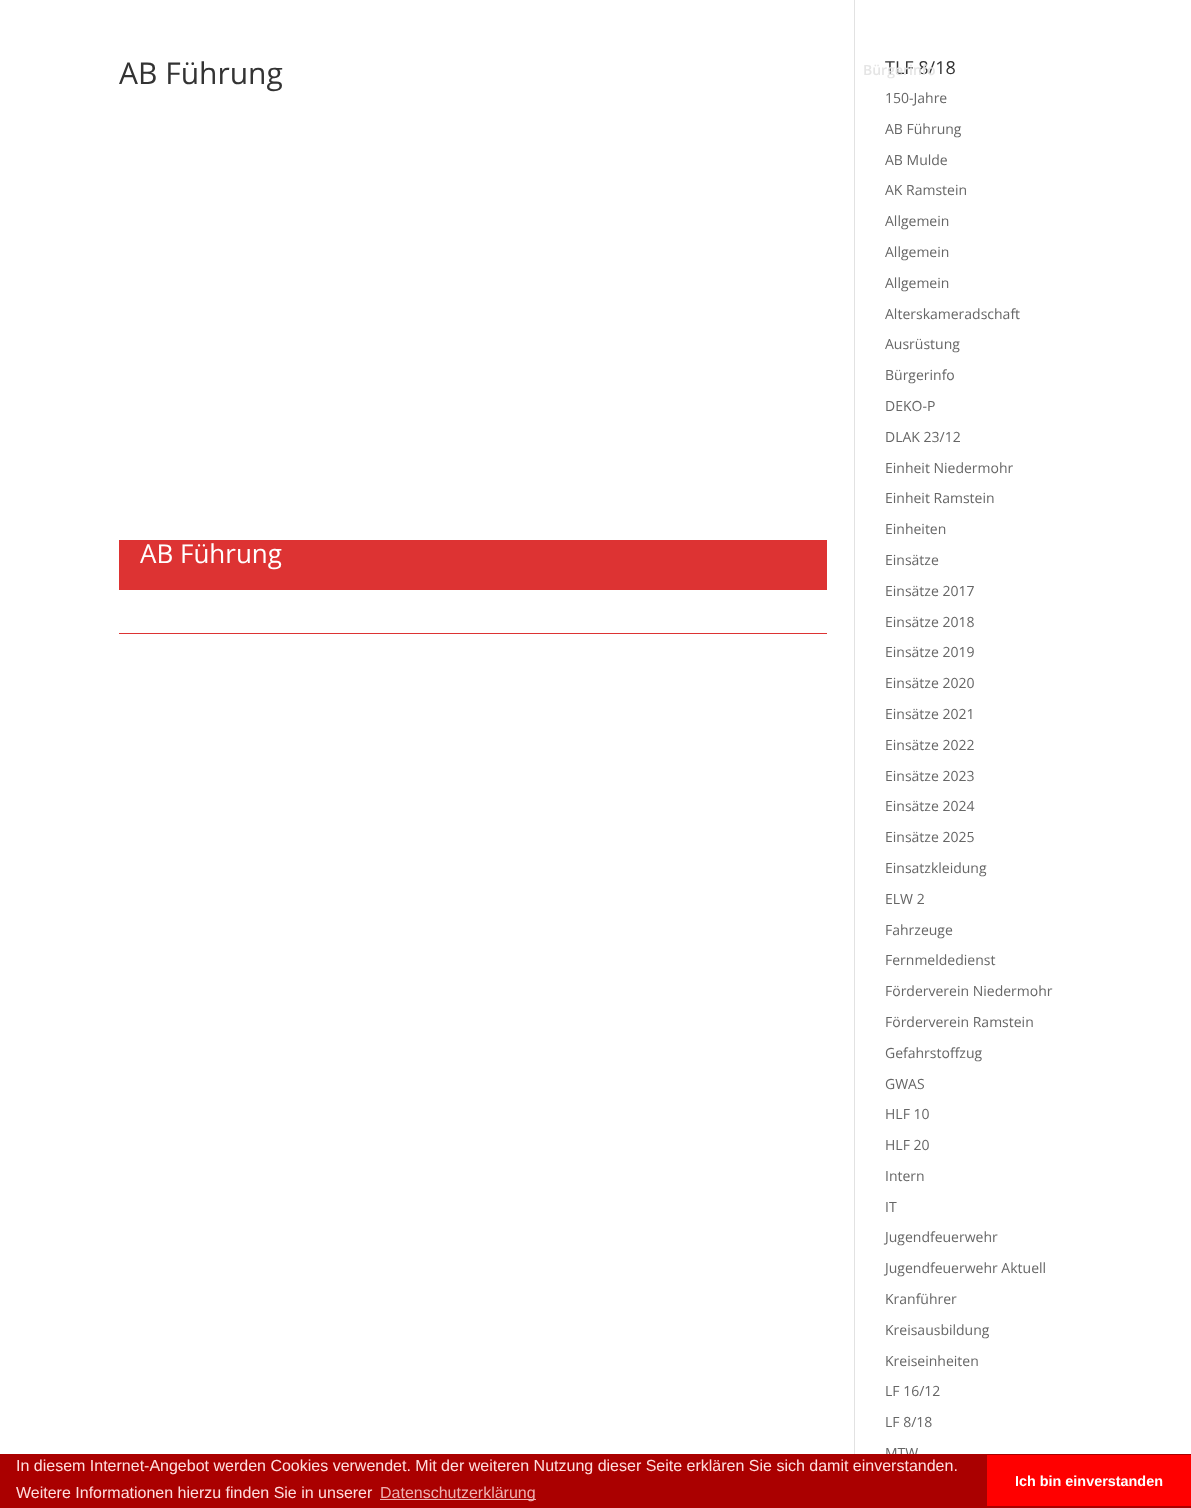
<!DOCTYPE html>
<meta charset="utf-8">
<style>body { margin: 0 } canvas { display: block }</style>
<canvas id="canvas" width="1191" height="1508"></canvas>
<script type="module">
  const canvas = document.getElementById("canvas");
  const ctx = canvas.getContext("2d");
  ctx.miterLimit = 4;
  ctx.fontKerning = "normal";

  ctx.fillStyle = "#ffffff";
  ctx.fillRect(0, 0, 1191, 1508);
  ctx.fillStyle = "#e2e2e2";
  ctx.fillRect(854, 0, 1, 1454);
  ctx.font = "30px Open Sans";
  ctx.fillStyle = "#333333";
  ctx.fillText("AB Führung", 119, 84);
  ctx.fillStyle = "#dd3333";
  ctx.fillRect(119, 540, 708, 50);
  ctx.font = "26px Open Sans";
  ctx.fillStyle = "#ffffff";
  ctx.fillText("AB Führung", 140, 563);
  ctx.fillStyle = "#dd3333";
  ctx.fillRect(119, 633, 708, 1);
  ctx.font = "18px Open Sans";
  ctx.fillStyle = "#333333";
  ctx.fillText("TLF 8/18", 885, 74);
  ctx.font = "14px Open Sans";
  ctx.fillStyle = "#666666";
  ctx.fillText("150-Jahre", 885, 103);
  ctx.fillText("AB Führung", 885, 134);
  ctx.fillText("AB Mulde", 885, 165);
  ctx.fillText("AK Ramstein", 885, 195);
  ctx.fillText("Allgemein", 885, 226);
  ctx.fillText("Allgemein", 885, 257);
  ctx.fillText("Allgemein", 885, 288);
  ctx.fillText("Alterskameradschaft", 885, 319);
  ctx.fillText("Ausrüstung", 885, 349);
  ctx.fillText("Bürgerinfo", 885, 380);
  ctx.fillText("DEKO-P", 885, 411);
  ctx.fillText("DLAK 23/12", 885, 442);
  ctx.fillText("Einheit Niedermohr", 885, 473);
  ctx.fillText("Einheit Ramstein", 885, 503);
  ctx.fillText("Einheiten", 885, 534);
  ctx.fillText("Einsätze", 885, 565);
  ctx.fillText("Einsätze 2017", 885, 596);
  ctx.fillText("Einsätze 2018", 885, 627);
  ctx.fillText("Einsätze 2019", 885, 657);
  ctx.fillText("Einsätze 2020", 885, 688);
  ctx.fillText("Einsätze 2021", 885, 719);
  ctx.fillText("Einsätze 2022", 885, 750);
  ctx.fillText("Einsätze 2023", 885, 781);
  ctx.fillText("Einsätze 2024", 885, 811);
  ctx.fillText("Einsätze 2025", 885, 842);
  ctx.fillText("Einsatzkleidung", 885, 873);
  ctx.fillText("ELW 2", 885, 904);
  ctx.fillText("Fahrzeuge", 885, 935);
  ctx.fillText("Fernmeldedienst", 885, 965);
  ctx.fillText("Förderverein Niedermohr", 885, 996);
  ctx.fillText("Förderverein Ramstein", 885, 1027);
  ctx.fillText("Gefahrstoffzug", 885, 1058);
  ctx.fillText("GWAS", 885, 1089);
  ctx.fillText("HLF 10", 885, 1119);
  ctx.fillText("HLF 20", 885, 1150);
  ctx.fillText("Intern", 885, 1181);
  ctx.fillText("IT", 885, 1212);
  ctx.fillText("Jugendfeuerwehr", 885, 1242);
  ctx.fillText("Jugendfeuerwehr Aktuell", 885, 1273);
  ctx.fillText("Kranführer", 885, 1304);
  ctx.fillText("Kreisausbildung", 885, 1335);
  ctx.fillText("Kreiseinheiten", 885, 1366);
  ctx.fillText("LF 16/12", 885, 1396);
  ctx.fillText("LF 8/18", 885, 1427);
  ctx.fillText("MTW", 885, 1458);
  ctx.font = "600 14px Open Sans";
  ctx.fillStyle = "#e5e5e5";
  ctx.fillText("Bürgerinfo", 863, 75);
  ctx.fillStyle = "#aa0000";
  ctx.fillRect(0, 1454, 1191, 54);
  ctx.font = "16px Liberation Sans";
  ctx.fillStyle = "#ffdddd";
  ctx.fillText("In diesem Internet-Angebot werden Cookies verwendet. Mit der weiteren Nutzung dieser Seite erklären Sie sich damit einverstanden.", 16, 1471);
  ctx.fillText("Weitere Informationen hierzu finden Sie in unserer", 16, 1498);
  ctx.fillStyle = "#eeb1b1";
  ctx.fillRect(380, 1499, 156, 1);
  ctx.fillText("Datenschutzerklärung", 380, 1498);
  ctx.fillStyle = "#ff0000";
  ctx.fillRect(987, 1455, 204, 51);
  ctx.font = "bold 14.4px Liberation Sans";
  ctx.fillStyle = "#ffffff";
  ctx.fillText("Ich bin einverstanden", 1015, 1486);
</script>
